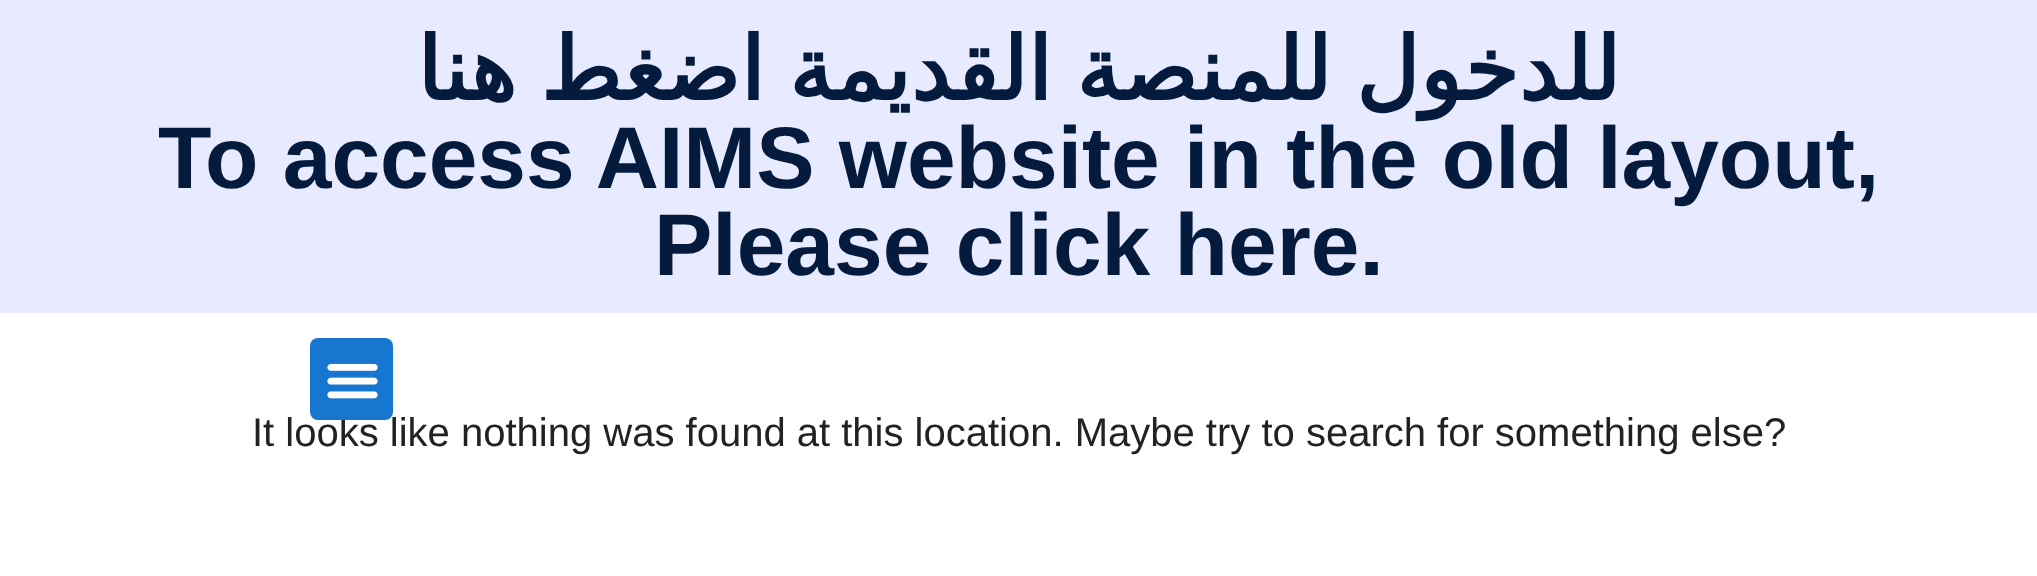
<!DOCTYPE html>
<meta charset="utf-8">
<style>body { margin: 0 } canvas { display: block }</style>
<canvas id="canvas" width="2037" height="576"></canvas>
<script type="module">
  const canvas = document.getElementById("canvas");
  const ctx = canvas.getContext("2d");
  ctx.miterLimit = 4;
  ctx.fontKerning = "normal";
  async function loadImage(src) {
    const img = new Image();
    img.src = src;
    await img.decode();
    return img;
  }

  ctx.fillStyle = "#ffffff";
  ctx.fillRect(0, 0, 2037, 576);
  ctx.fillStyle = "#e8ebff";
  ctx.fillRect(0, 0, 2037, 313);
  ctx.wordSpacing = "-3.5px";
  ctx.direction = "rtl";
  ctx.font = "bold 87.5px DejaVu Sans";
  ctx.fillStyle = "#051b3d";
  ctx.fillText("للدخول للمنصة القديمة اضغط هنا", 1620, 100);
  ctx.wordSpacing = "0px";
  ctx.direction = "ltr";
  ctx.font = "bold 87.5px Liberation Sans";
  ctx.fillText("To access AIMS website in the old layout,", 158, 188);
  ctx.fillText("Please click here.", 654, 275);
  ctx.font = "40px Liberation Sans";
  ctx.fillStyle = "#222222";
  ctx.fillText("It looks like nothing was found at this location. Maybe try to search for something else?", 252, 446);
  ctx.fillStyle = "#1777d0";
  ctx.beginPath();
  ctx.roundRect(310, 338, 83, 82, 8);
  ctx.fill();
  ctx.drawImage(await loadImage("img1.png"), 327, 363, 51, 36);
</script>
